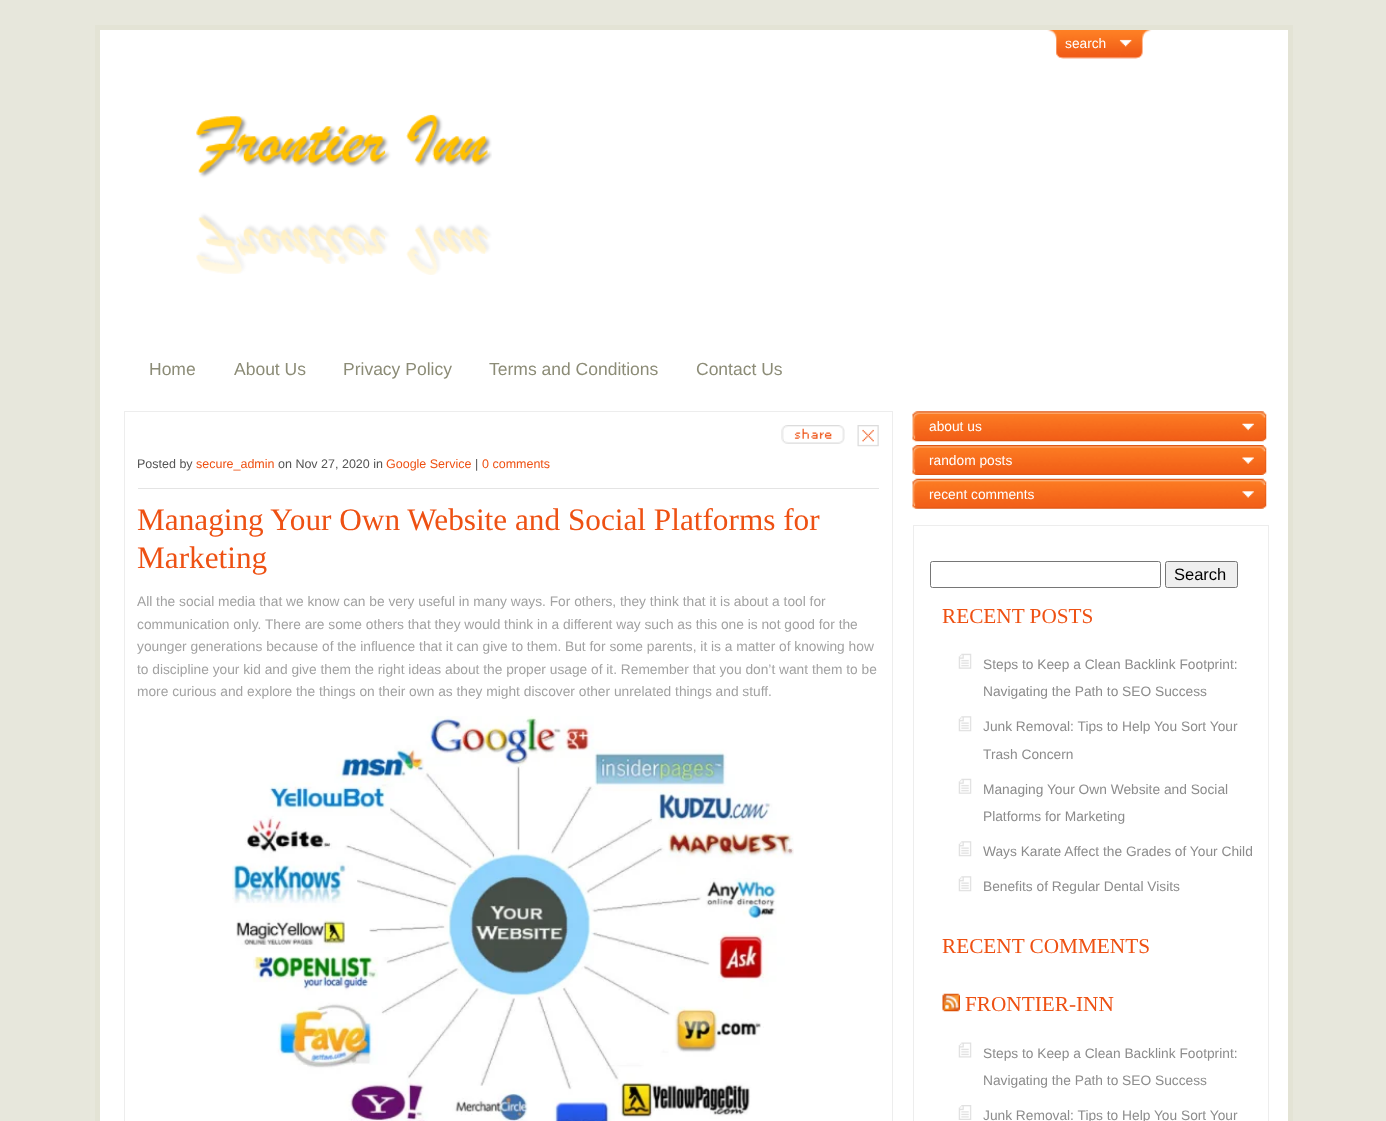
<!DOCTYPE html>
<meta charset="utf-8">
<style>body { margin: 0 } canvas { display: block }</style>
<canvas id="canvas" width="1386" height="1121"></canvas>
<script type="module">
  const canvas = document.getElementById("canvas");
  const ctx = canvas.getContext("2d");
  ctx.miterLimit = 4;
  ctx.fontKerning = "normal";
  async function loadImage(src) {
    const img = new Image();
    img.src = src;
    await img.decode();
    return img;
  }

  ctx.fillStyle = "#e7e7dc";
  ctx.fillRect(0, 0, 1386, 1121);
  ctx.fillStyle = "#ffffff";
  ctx.beginPath();
  ctx.rect(97.5, 27.5, 1193, 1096);
  ctx.fill();
  ctx.strokeStyle = "#e3e3d5";
  ctx.lineWidth = 5;
  ctx.stroke();
  ctx.drawImage(await loadImage("img1.png"), 1047, 30, 105, 29);
  ctx.font = "13.75px Liberation Sans";
  ctx.fillText("search", 1065, 48);
  ctx.drawImage(await loadImage("img2.png"), 196, 114, 296, 161);
  ctx.font = "17.5px Liberation Sans";
  ctx.fillStyle = "#8c8c77";
  ctx.fillText("Home", 149, 375);
  ctx.fillText("About Us", 234, 375);
  ctx.fillText("Privacy Policy", 343, 375);
  ctx.fillText("Terms and Conditions", 489, 375);
  ctx.fillText("Contact Us", 696, 375);
  ctx.strokeStyle = "#ededed";
  ctx.lineWidth = 1;
  ctx.strokeRect(124.5, 411.5, 768, 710);
  ctx.drawImage(await loadImage("img3.png"), 781, 425, 64, 19);
  ctx.drawImage(await loadImage("img4.png"), 857, 425, 22, 22);
  ctx.fillStyle = "#e4e4e4";
  ctx.fillRect(138, 488, 741, 1);
  ctx.font = "12.5px Liberation Sans";
  ctx.fillStyle = "#545454";
  ctx.fillText("Posted by", 137, 468);
  ctx.fillStyle = "#ee5113";
  ctx.fillText("secure_admin", 196, 468);
  ctx.fillStyle = "#545454";
  ctx.fillText("on Nov 27, 2020 in", 278, 468);
  ctx.fillStyle = "#ee5113";
  ctx.fillText("Google Service", 386, 468);
  ctx.fillStyle = "#545454";
  ctx.fillText("|", 475, 468);
  ctx.fillStyle = "#ee5113";
  ctx.fillText("0 comments", 482, 468);
  ctx.font = "31.25px Liberation Serif";
  ctx.fillText("Managing Your Own Website and Social Platforms for", 137, 530);
  ctx.fillText("Marketing", 137, 568);
  ctx.font = "13.75px Liberation Sans";
  ctx.fillStyle = "#a2a2a2";
  ctx.fillText("All the social media that we know can be very useful in many ways. For others, they think that it is about a tool for", 137, 606);
  ctx.fillText("communication only. There are some others that they would think in a different way such as this one is not good for the", 137, 629);
  ctx.fillText("younger generations because of the influence that it can give to them. But for some parents, it is a matter of knowing how", 137, 651);
  ctx.fillText("to discipline your kid and give them the right ideas about the proper usage of it. Remember that you don’t want them to be", 137, 674);
  ctx.fillText("more curious and explore the things on their own as they might discover other unrelated things and stuff.", 137, 696);
  ctx.drawImage(await loadImage("img5.png"), 232, 716, 562, 405);
  ctx.drawImage(await loadImage("img6.png"), 912, 411, 355, 31);
  ctx.fillStyle = "#ffffff";
  ctx.fillText("about us", 929, 431);
  ctx.drawImage(await loadImage("img7.png"), 912, 445, 355, 30);
  ctx.fillText("random posts", 929, 465);
  ctx.drawImage(await loadImage("img8.png"), 912, 478, 355, 31);
  ctx.fillText("recent comments", 929, 499);
  ctx.strokeRect(913.5, 525.5, 355, 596);
  ctx.beginPath();
  ctx.roundRect(930.5, 561.5, 230, 26, 2);
  ctx.strokeStyle = "#767676";
  ctx.stroke();
  ctx.fillStyle = "#efefef";
  ctx.beginPath();
  ctx.roundRect(1165.5, 561.5, 72, 26, 2);
  ctx.fill();
  ctx.stroke();
  ctx.font = "16.5px Liberation Sans";
  ctx.fillStyle = "#000000";
  ctx.fillText("Search", 1174, 580);
  ctx.font = "21.25px Liberation Serif";
  ctx.fillStyle = "#ee5113";
  ctx.fillText("RECENT POSTS", 942, 623);
  ctx.drawImage(await loadImage("img9.png"), 958, 653, 14, 16);
  ctx.font = "13.75px Liberation Sans";
  ctx.fillStyle = "#8c8c8c";
  ctx.fillText("Steps to Keep a Clean Backlink Footprint:", 983, 669);
  ctx.fillText("Navigating the Path to SEO Success", 983, 696);
  ctx.drawImage(await loadImage("img10.png"), 958, 716, 14, 16);
  ctx.fillText("Junk Removal: Tips to Help You Sort Your", 983, 731);
  ctx.fillText("Trash Concern", 983, 759);
  ctx.drawImage(await loadImage("img11.png"), 958, 778, 14, 16);
  ctx.fillText("Managing Your Own Website and Social", 983, 794);
  ctx.fillText("Platforms for Marketing", 983, 821);
  ctx.drawImage(await loadImage("img10.png"), 958, 841, 14, 16);
  ctx.fillText("Ways Karate Affect the Grades of Your Child", 983, 856);
  ctx.drawImage(await loadImage("img10.png"), 958, 876, 14, 16);
  ctx.fillText("Benefits of Regular Dental Visits", 983, 891);
  ctx.font = "21.25px Liberation Serif";
  ctx.fillStyle = "#ee5113";
  ctx.fillText("RECENT COMMENTS", 942, 953);
  ctx.drawImage(await loadImage("img12.png"), 942, 993, 18, 19);
  ctx.fillText("FRONTIER-INN", 965, 1011);
  ctx.drawImage(await loadImage("img13.png"), 958, 1042, 14, 16);
  ctx.font = "13.75px Liberation Sans";
  ctx.fillStyle = "#8c8c8c";
  ctx.fillText("Steps to Keep a Clean Backlink Footprint:", 983, 1058);
  ctx.fillText("Navigating the Path to SEO Success", 983, 1085);
  ctx.drawImage(await loadImage("img14.png"), 958, 1105, 14, 15);
  ctx.fillText("Junk Removal: Tips to Help You Sort Your", 983, 1120);
</script>
